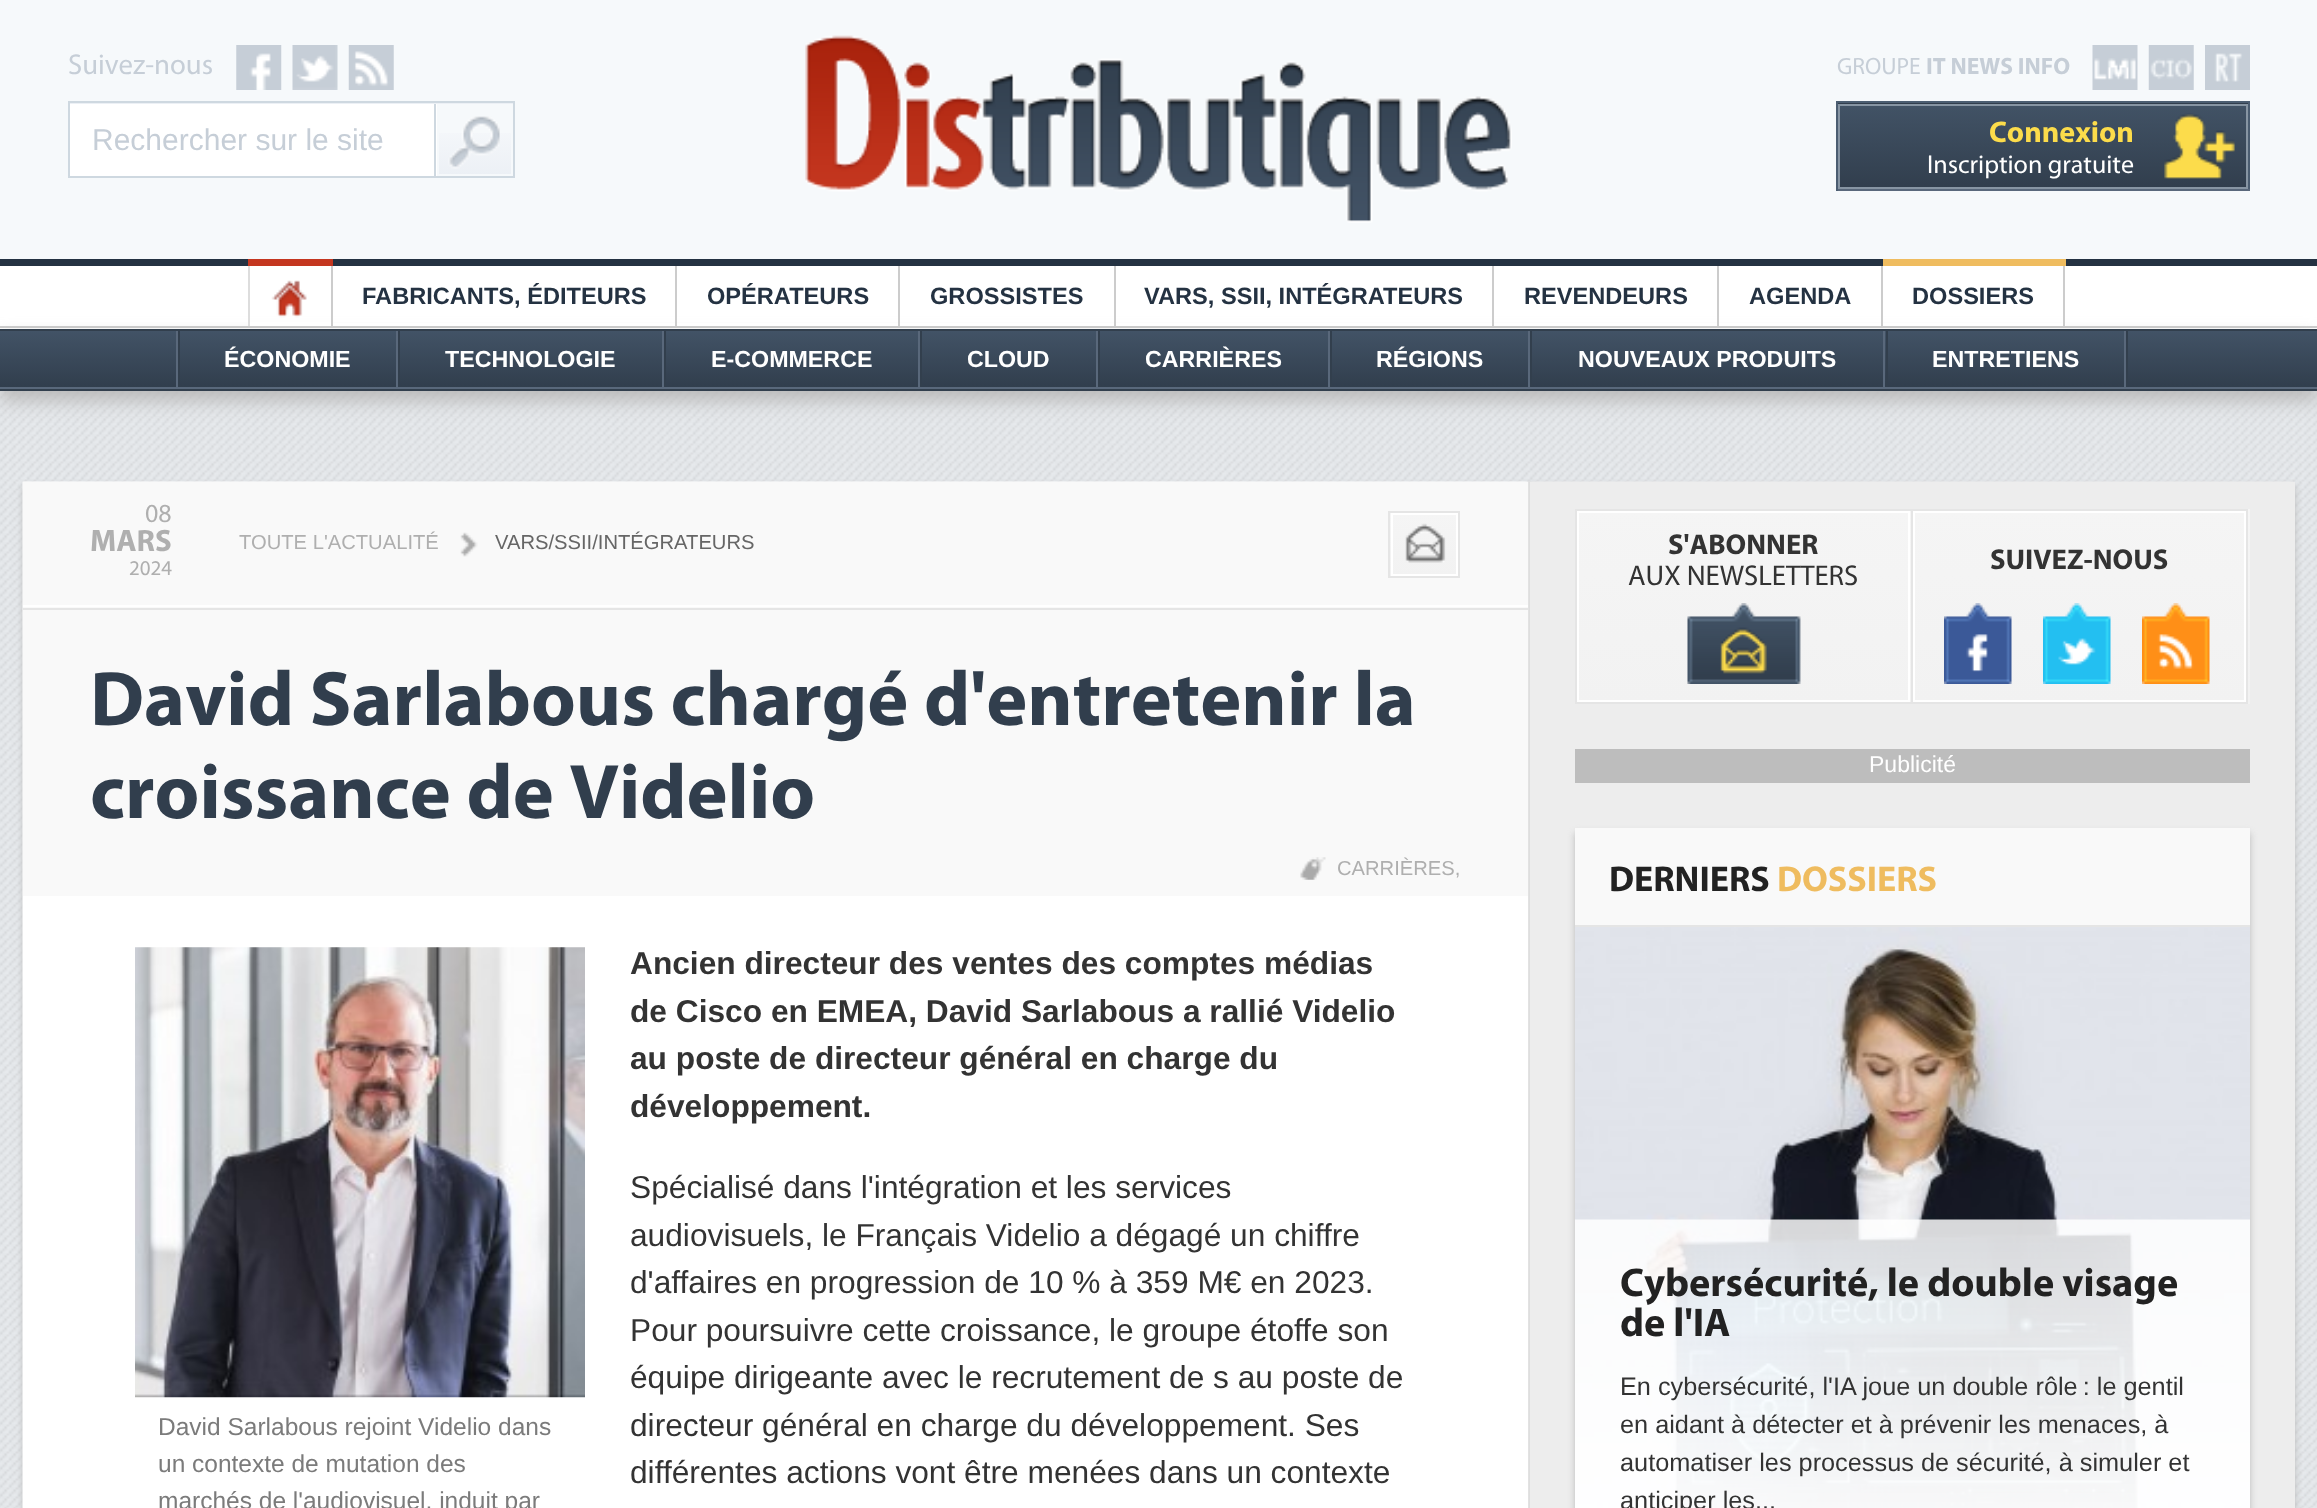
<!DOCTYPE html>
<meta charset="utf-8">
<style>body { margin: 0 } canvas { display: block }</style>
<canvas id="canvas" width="2317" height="1508"></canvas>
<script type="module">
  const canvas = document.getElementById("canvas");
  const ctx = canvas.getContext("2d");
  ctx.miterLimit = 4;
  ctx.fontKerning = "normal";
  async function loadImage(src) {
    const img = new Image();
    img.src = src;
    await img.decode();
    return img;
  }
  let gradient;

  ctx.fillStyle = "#ffffff";
  ctx.fillRect(0, 0, 2317, 1508);
  ctx.drawImage(await loadImage("img1.png"), 0, 391, 2317, 1117);
  ctx.fillStyle = "#f6f9fb";
  ctx.fillRect(0, 0, 2317, 259);
  ctx.font = "28.75px Myriad";
  ctx.fillStyle = "#c6ced7";
  ctx.fillText("Suivez-nous", 68, 74);
  ctx.drawImage(await loadImage("img2.png"), 236, 45, 46, 45);
  ctx.drawImage(await loadImage("img3.png"), 292, 45, 46, 45);
  ctx.drawImage(await loadImage("img4.png"), 348, 45, 46, 45);
  gradient = ctx.createLinearGradient(291, 31, 291, 104);
  gradient.addColorStop(0, "#f9fbfd");
  gradient.addColorStop(1, "#ecf0f5");
  ctx.fillStyle = gradient;
  ctx.fillRect(68, 103, 447, 1);
  gradient = ctx.createLinearGradient(291, 103, 291, 176);
  gradient.addColorStop(0, "#f9fbfd");
  gradient.addColorStop(1, "#ecf0f5");
  ctx.fillStyle = gradient;
  ctx.fillRect(439, 133, 72, 41);
  ctx.strokeStyle = "#ced8e0";
  ctx.lineWidth = 2;
  ctx.strokeRect(69, 102, 445, 75);
  ctx.fillStyle = "#ffffff";
  ctx.fillRect(70, 104, 367, 72);
  ctx.fillStyle = "#ced8e0";
  ctx.fillRect(434, 104, 2, 72);
  ctx.font = "30px Liberation Sans";
  ctx.fillStyle = "#c6ced7";
  ctx.fillText("Rechercher sur le site", 92, 150);
  ctx.drawImage(await loadImage("img5.png"), 448, 116, 52, 53);
  ctx.drawImage(await loadImage("img6.png"), 805, 35, 707, 188);
  ctx.font = "23.6px Myriad";
  ctx.fillText("GROUPE", 1837, 74);
  ctx.font = "bold 23.6px Myriad";
  ctx.fillText("IT NEWS INFO", 1926, 74);
  ctx.drawImage(await loadImage("img7.png"), 2092, 45, 46, 45);
  ctx.drawImage(await loadImage("img8.png"), 2148, 45, 46, 45);
  ctx.drawImage(await loadImage("img9.png"), 2205, 45, 45, 45);
  gradient = ctx.createLinearGradient(2043, 18, 2043, 104);
  gradient.addColorStop(0, "#425366");
  gradient.addColorStop(1, "#313e4d");
  ctx.fillStyle = gradient;
  ctx.fillRect(1836, 103, 414, 1);
  gradient = ctx.createLinearGradient(2043, 103, 2043, 189);
  gradient.addColorStop(0, "#425366");
  gradient.addColorStop(1, "#313e4d");
  ctx.fillStyle = gradient;
  ctx.fillRect(1840, 106, 406, 81);
  ctx.fillStyle = "#4b5d71";
  ctx.fillRect(1836, 101, 414, 2);
  ctx.fillRect(2248, 101, 2, 90);
  ctx.fillStyle = "#59687b";
  ctx.fillRect(1836, 189, 414, 2);
  ctx.fillStyle = "#4b5d71";
  ctx.fillRect(1836, 101, 2, 90);
  ctx.drawImage(await loadImage("img10.png"), 2164, 113, 71, 66);
  ctx.strokeStyle = "#8795a3";
  ctx.strokeRect(1839, 105, 408, 83);
  ctx.font = "bold 30px Myriad";
  ctx.fillStyle = "#fcdc4b";
  ctx.fillText("Connexion", 1989, 142);
  ctx.font = "26px Myriad";
  ctx.fillStyle = "#ffffff";
  ctx.fillText("Inscription gratuite", 1927, 173);
  ctx.fillStyle = "#243242";
  ctx.fillRect(0, 259, 2317, 7);
  ctx.fillStyle = "#cccccc";
  ctx.fillRect(0, 326, 2317, 2);
  ctx.fillStyle = "#c4361f";
  ctx.fillRect(248, 259, 85, 7);
  ctx.fillStyle = "#bbbbbb";
  ctx.filter = "blur(9px)";
  ctx.beginPath();
  ctx.rect(0, 338, 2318, 63);
  ctx.fill();
  ctx.filter = "none";
  ctx.fillStyle = "#ffffff";
  ctx.fillRect(250, 322, 81, 4);
  ctx.drawImage(await loadImage("img11.png"), 271, 280, 36, 38);
  ctx.fillStyle = "#cccccc";
  ctx.fillRect(331, 266, 2, 60);
  ctx.fillStyle = "#dddddd";
  ctx.fillRect(248, 266, 2, 60);
  ctx.fillStyle = "#fefefe";
  ctx.fillRect(333, 323, 342, 3);
  ctx.fillStyle = "#cccccc";
  ctx.fillRect(675, 266, 2, 60);
  ctx.font = "bold 23.6px Liberation Sans";
  ctx.fillStyle = "#243242";
  ctx.fillText("FABRICANTS, ÉDITEURS", 362, 304);
  ctx.fillStyle = "#fefefe";
  ctx.fillRect(677, 323, 221, 3);
  ctx.fillStyle = "#cccccc";
  ctx.fillRect(898, 266, 2, 60);
  ctx.fillStyle = "#243242";
  ctx.fillText("OPÉRATEURS", 707, 304);
  ctx.fillStyle = "#fefefe";
  ctx.fillRect(900, 323, 214, 3);
  ctx.fillStyle = "#cccccc";
  ctx.fillRect(1114, 266, 2, 60);
  ctx.fillStyle = "#243242";
  ctx.fillText("GROSSISTES", 930, 304);
  ctx.fillStyle = "#fefefe";
  ctx.fillRect(1116, 323, 376, 3);
  ctx.fillStyle = "#cccccc";
  ctx.fillRect(1492, 266, 2, 60);
  ctx.fillStyle = "#243242";
  ctx.fillText("VARS, SSII, INTÉGRATEURS", 1144, 304);
  ctx.fillStyle = "#fefefe";
  ctx.fillRect(1494, 323, 223, 3);
  ctx.fillStyle = "#cccccc";
  ctx.fillRect(1717, 266, 2, 60);
  ctx.fillStyle = "#243242";
  ctx.fillText("REVENDEURS", 1524, 304);
  ctx.fillStyle = "#fefefe";
  ctx.fillRect(1719, 323, 162, 3);
  ctx.fillStyle = "#cccccc";
  ctx.fillRect(1881, 266, 2, 60);
  ctx.fillStyle = "#243242";
  ctx.fillText("AGENDA", 1749, 304);
  ctx.fillStyle = "#efbc5f";
  ctx.fillRect(1883, 259, 183, 7);
  ctx.fillStyle = "#fefefe";
  ctx.fillRect(1883, 323, 183, 3);
  ctx.fillStyle = "#cccccc";
  ctx.fillRect(2063, 266, 2, 60);
  ctx.fillStyle = "#243242";
  ctx.fillText("DOSSIERS", 1912, 304);
  ctx.fillStyle = "#323f4d";
  ctx.fillRect(0, 329, 2317, 2);
  ctx.fillRect(0, 389, 2317, 2);
  gradient = ctx.createLinearGradient(1159, 331, 1159, 387);
  gradient.addColorStop(0, "#425366");
  gradient.addColorStop(1, "#313e4d");
  ctx.fillStyle = gradient;
  ctx.fillRect(0, 331, 2317, 56);
  ctx.fillStyle = "#59687b";
  ctx.fillRect(0, 387, 2317, 2);
  ctx.fillRect(176, 331, 2, 56);
  ctx.fillStyle = "#323f4d";
  ctx.fillRect(178, 331, 2, 56);
  ctx.font = "bold 23.25px Liberation Sans";
  ctx.fillStyle = "#ffffff";
  ctx.fillText("ÉCONOMIE", 224, 367);
  ctx.fillStyle = "#59687b";
  ctx.fillRect(396, 331, 2, 56);
  ctx.fillStyle = "#323f4d";
  ctx.fillRect(398, 331, 2, 56);
  ctx.fillStyle = "#ffffff";
  ctx.fillText("TECHNOLOGIE", 445, 367);
  ctx.fillStyle = "#59687b";
  ctx.fillRect(662, 331, 2, 56);
  ctx.fillStyle = "#323f4d";
  ctx.fillRect(664, 331, 2, 56);
  ctx.fillStyle = "#ffffff";
  ctx.fillText("E-COMMERCE", 711, 367);
  ctx.fillStyle = "#59687b";
  ctx.fillRect(918, 331, 2, 56);
  ctx.fillStyle = "#323f4d";
  ctx.fillRect(920, 331, 2, 56);
  ctx.fillStyle = "#ffffff";
  ctx.fillText("CLOUD", 967, 367);
  ctx.fillStyle = "#59687b";
  ctx.fillRect(1096, 331, 2, 56);
  ctx.fillStyle = "#323f4d";
  ctx.fillRect(1098, 331, 2, 56);
  ctx.fillStyle = "#ffffff";
  ctx.fillText("CARRIÈRES", 1145, 367);
  ctx.fillStyle = "#59687b";
  ctx.fillRect(1328, 331, 2, 56);
  ctx.fillStyle = "#323f4d";
  ctx.fillRect(1330, 331, 2, 56);
  ctx.fillStyle = "#ffffff";
  ctx.fillText("RÉGIONS", 1376, 367);
  ctx.fillStyle = "#59687b";
  ctx.fillRect(1528, 331, 2, 56);
  ctx.fillStyle = "#323f4d";
  ctx.fillRect(1530, 331, 2, 56);
  ctx.fillStyle = "#ffffff";
  ctx.fillText("NOUVEAUX PRODUITS", 1578, 367);
  ctx.fillStyle = "#323f4d";
  ctx.fillRect(2126, 331, 2, 56);
  ctx.fillStyle = "#59687b";
  ctx.fillRect(1883, 331, 2, 56);
  ctx.fillRect(2124, 331, 2, 56);
  ctx.fillStyle = "#323f4d";
  ctx.fillRect(1886, 331, 2, 56);
  ctx.fillStyle = "#ffffff";
  ctx.fillText("ENTRETIENS", 1932, 367);
  ctx.fillStyle = "#bbbbbb";
  ctx.filter = "blur(3.5px)";
  ctx.beginPath();
  ctx.rect(23, 486, 2272, 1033);
  ctx.fill();
  ctx.filter = "none";
  ctx.drawImage(await loadImage("img12.png"), 22, 481, 2271, 1027);
  ctx.fillStyle = "#ffffff";
  ctx.fillRect(1527, 896, 1, 612);
  ctx.fillStyle = "#f9f9f9";
  ctx.fillRect(23, 482, 1505, 126);
  ctx.fillStyle = "#ffffff";
  ctx.fillRect(23, 605, 1505, 2);
  ctx.font = "26px Myriad";
  ctx.fillStyle = "#afafaf";
  ctx.fillText("08", 145, 522);
  ctx.font = "bold 31px Myriad";
  ctx.fillText("MARS", 90, 551);
  ctx.font = "21px Myriad";
  ctx.fillText("2024", 129, 575);
  ctx.font = "20.2px Liberation Sans";
  ctx.fillText("TOUTE L'ACTUALITÉ", 239, 549);
  ctx.drawImage(await loadImage("img13.png"), 460, 532, 18, 25);
  ctx.fillStyle = "#666666";
  ctx.fillText("VARS/SSII/INTÉGRATEURS", 495, 549);
  gradient = ctx.createLinearGradient(1424, 513, 1424, 576);
  gradient.addColorStop(0, "#f5f5f5");
  gradient.addColorStop(1, "#f2f2f2");
  ctx.fillStyle = gradient;
  ctx.fillRect(1390, 513, 66, 63);
  ctx.strokeStyle = "#e5e5e5";
  ctx.strokeRect(1389, 512, 70, 65);
  ctx.drawImage(await loadImage("img14.png"), 1405, 523, 41, 40);
  ctx.strokeStyle = "#ffffff";
  ctx.strokeRect(1392, 514, 65, 61);
  ctx.fillStyle = "#f9f9f9";
  ctx.fillRect(23, 610, 1505, 286);
  ctx.fillStyle = "#e5e5e5";
  ctx.fillRect(23, 608, 1505, 2);
  ctx.font = "bold 77.75px Myriad";
  ctx.fillStyle = "#313e4d";
  ctx.fillText("David Sarlabous chargé d'entretenir la", 90, 725);
  ctx.fillText("croissance de Videlio", 90, 818);
  ctx.drawImage(await loadImage("img15.png"), 1300, 857, 26, 23);
  ctx.font = "20.2px Liberation Sans";
  ctx.fillStyle = "#afafaf";
  ctx.fillText("CARRIÈRES,", 1337, 875);
  ctx.font = "bold 31.7px Liberation Sans";
  ctx.fillStyle = "#333333";
  ctx.fillText("Ancien directeur des ventes des comptes médias", 630, 974);
  ctx.fillText("de Cisco en EMEA, David Sarlabous a rallié Videlio", 630, 1022);
  ctx.fillText("au poste de directeur général en charge du", 630, 1069);
  ctx.fillText("développement.", 630, 1117);
  ctx.drawImage(await loadImage("img16.png"), 135, 947, 450, 451);
  ctx.font = "24.5px Liberation Sans";
  ctx.fillStyle = "#7b7b7b";
  ctx.fillText("David Sarlabous rejoint Videlio dans", 158, 1435);
  ctx.fillText("un contexte de mutation des", 158, 1472);
  ctx.fillText("marchés de l'audiovisuel, induit par", 158, 1509);
  ctx.font = "31.7px Liberation Sans";
  ctx.fillStyle = "#333333";
  ctx.fillText("Spécialisé dans l'intégration et les services", 630, 1198);
  ctx.fillText("audiovisuels, le Français Videlio a dégagé un chiffre", 630, 1246);
  ctx.fillText("d'affaires en progression de 10 % à 359 M€ en 2023.", 630, 1293);
  ctx.fillText("Pour poursuivre cette croissance, le groupe étoffe son", 630, 1341);
  ctx.fillText("équipe dirigeante avec le recrutement de s au poste de", 630, 1388);
  ctx.fillText("directeur général en charge du développement. Ses", 630, 1436);
  ctx.fillText("différentes actions vont être menées dans un contexte", 630, 1483);
  ctx.fillStyle = "#ededed";
  ctx.fillRect(1530, 482, 765, 1026);
  gradient = ctx.createLinearGradient(1913, 508, 1913, 704);
  gradient.addColorStop(0, "#f5f5f5");
  gradient.addColorStop(1, "#f2f2f2");
  ctx.fillStyle = gradient;
  ctx.fillRect(1579, 509, 671, 195);
  ctx.strokeRect(1578, 512, 331, 189);
  ctx.strokeStyle = "#e5e5e5";
  ctx.strokeRect(1576, 510, 336, 193);
  ctx.font = "bold 28.75px Myriad";
  ctx.fillStyle = "#333333";
  ctx.fillText("S'ABONNER", 1668, 554);
  ctx.font = "28.75px Myriad";
  ctx.fillText("AUX NEWSLETTERS", 1628, 585);
  ctx.drawImage(await loadImage("img17.png"), 1687, 603, 114, 81);
  ctx.strokeStyle = "#ffffff";
  ctx.strokeRect(1914, 512, 331, 189);
  ctx.fillStyle = "#e5e5e5";
  ctx.fillRect(1913, 509, 335, 2);
  ctx.fillRect(2246, 509, 2, 195);
  ctx.fillRect(1913, 702, 335, 2);
  ctx.font = "bold 28.75px Myriad";
  ctx.fillStyle = "#333333";
  ctx.fillText("SUIVEZ-NOUS", 1990, 569);
  ctx.drawImage(await loadImage("img18.png"), 1944, 603, 68, 81);
  ctx.drawImage(await loadImage("img19.png"), 2043, 603, 68, 81);
  ctx.drawImage(await loadImage("img20.png"), 2142, 603, 68, 81);
  ctx.fillStyle = "#bdbdbd";
  ctx.fillRect(1575, 749, 675, 34);
  ctx.font = "23px Liberation Sans";
  ctx.fillStyle = "#ffffff";
  ctx.fillText("Publicité", 1869, 772);
  ctx.fillStyle = "#bbbbbb";
  ctx.filter = "blur(3.5px)";
  ctx.beginPath();
  ctx.rect(1575, 833, 675, 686);
  ctx.fill();
  ctx.filter = "none";
  ctx.fillStyle = "#f9f9f9";
  ctx.fillRect(1575, 828, 675, 97);
  ctx.fillStyle = "#e5e5e5";
  ctx.fillRect(1575, 925, 675, 2);
  ctx.font = "bold 36px Myriad";
  ctx.fillStyle = "#222222";
  ctx.fillText("DERNIERS", 1609, 891);
  ctx.fillStyle = "#efbc5f";
  ctx.fillText("DOSSIERS", 1777, 891);
  ctx.drawImage(await loadImage("img21.png"), 1575, 927, 675, 581);
  ctx.drawImage(await loadImage("img22.png"), 1575, 1219, 675, 289);
  ctx.font = "bold 40.25px Myriad";
  ctx.fillStyle = "#222222";
  ctx.fillText("Cybersécurité, le double visage", 1620, 1296);
  ctx.fillText("de l'IA", 1620, 1336);
  ctx.font = "25.3px Liberation Sans";
  ctx.fillStyle = "#333333";
  ctx.fillText("En cybersécurité, l'IA joue un double rôle : le gentil", 1620, 1395);
  ctx.fillText("en aidant à détecter et à prévenir les menaces, à", 1620, 1433);
  ctx.fillText("automatiser les processus de sécurité, à simuler et", 1620, 1471);
  ctx.fillText("anticiper les...", 1620, 1509);
</script>
